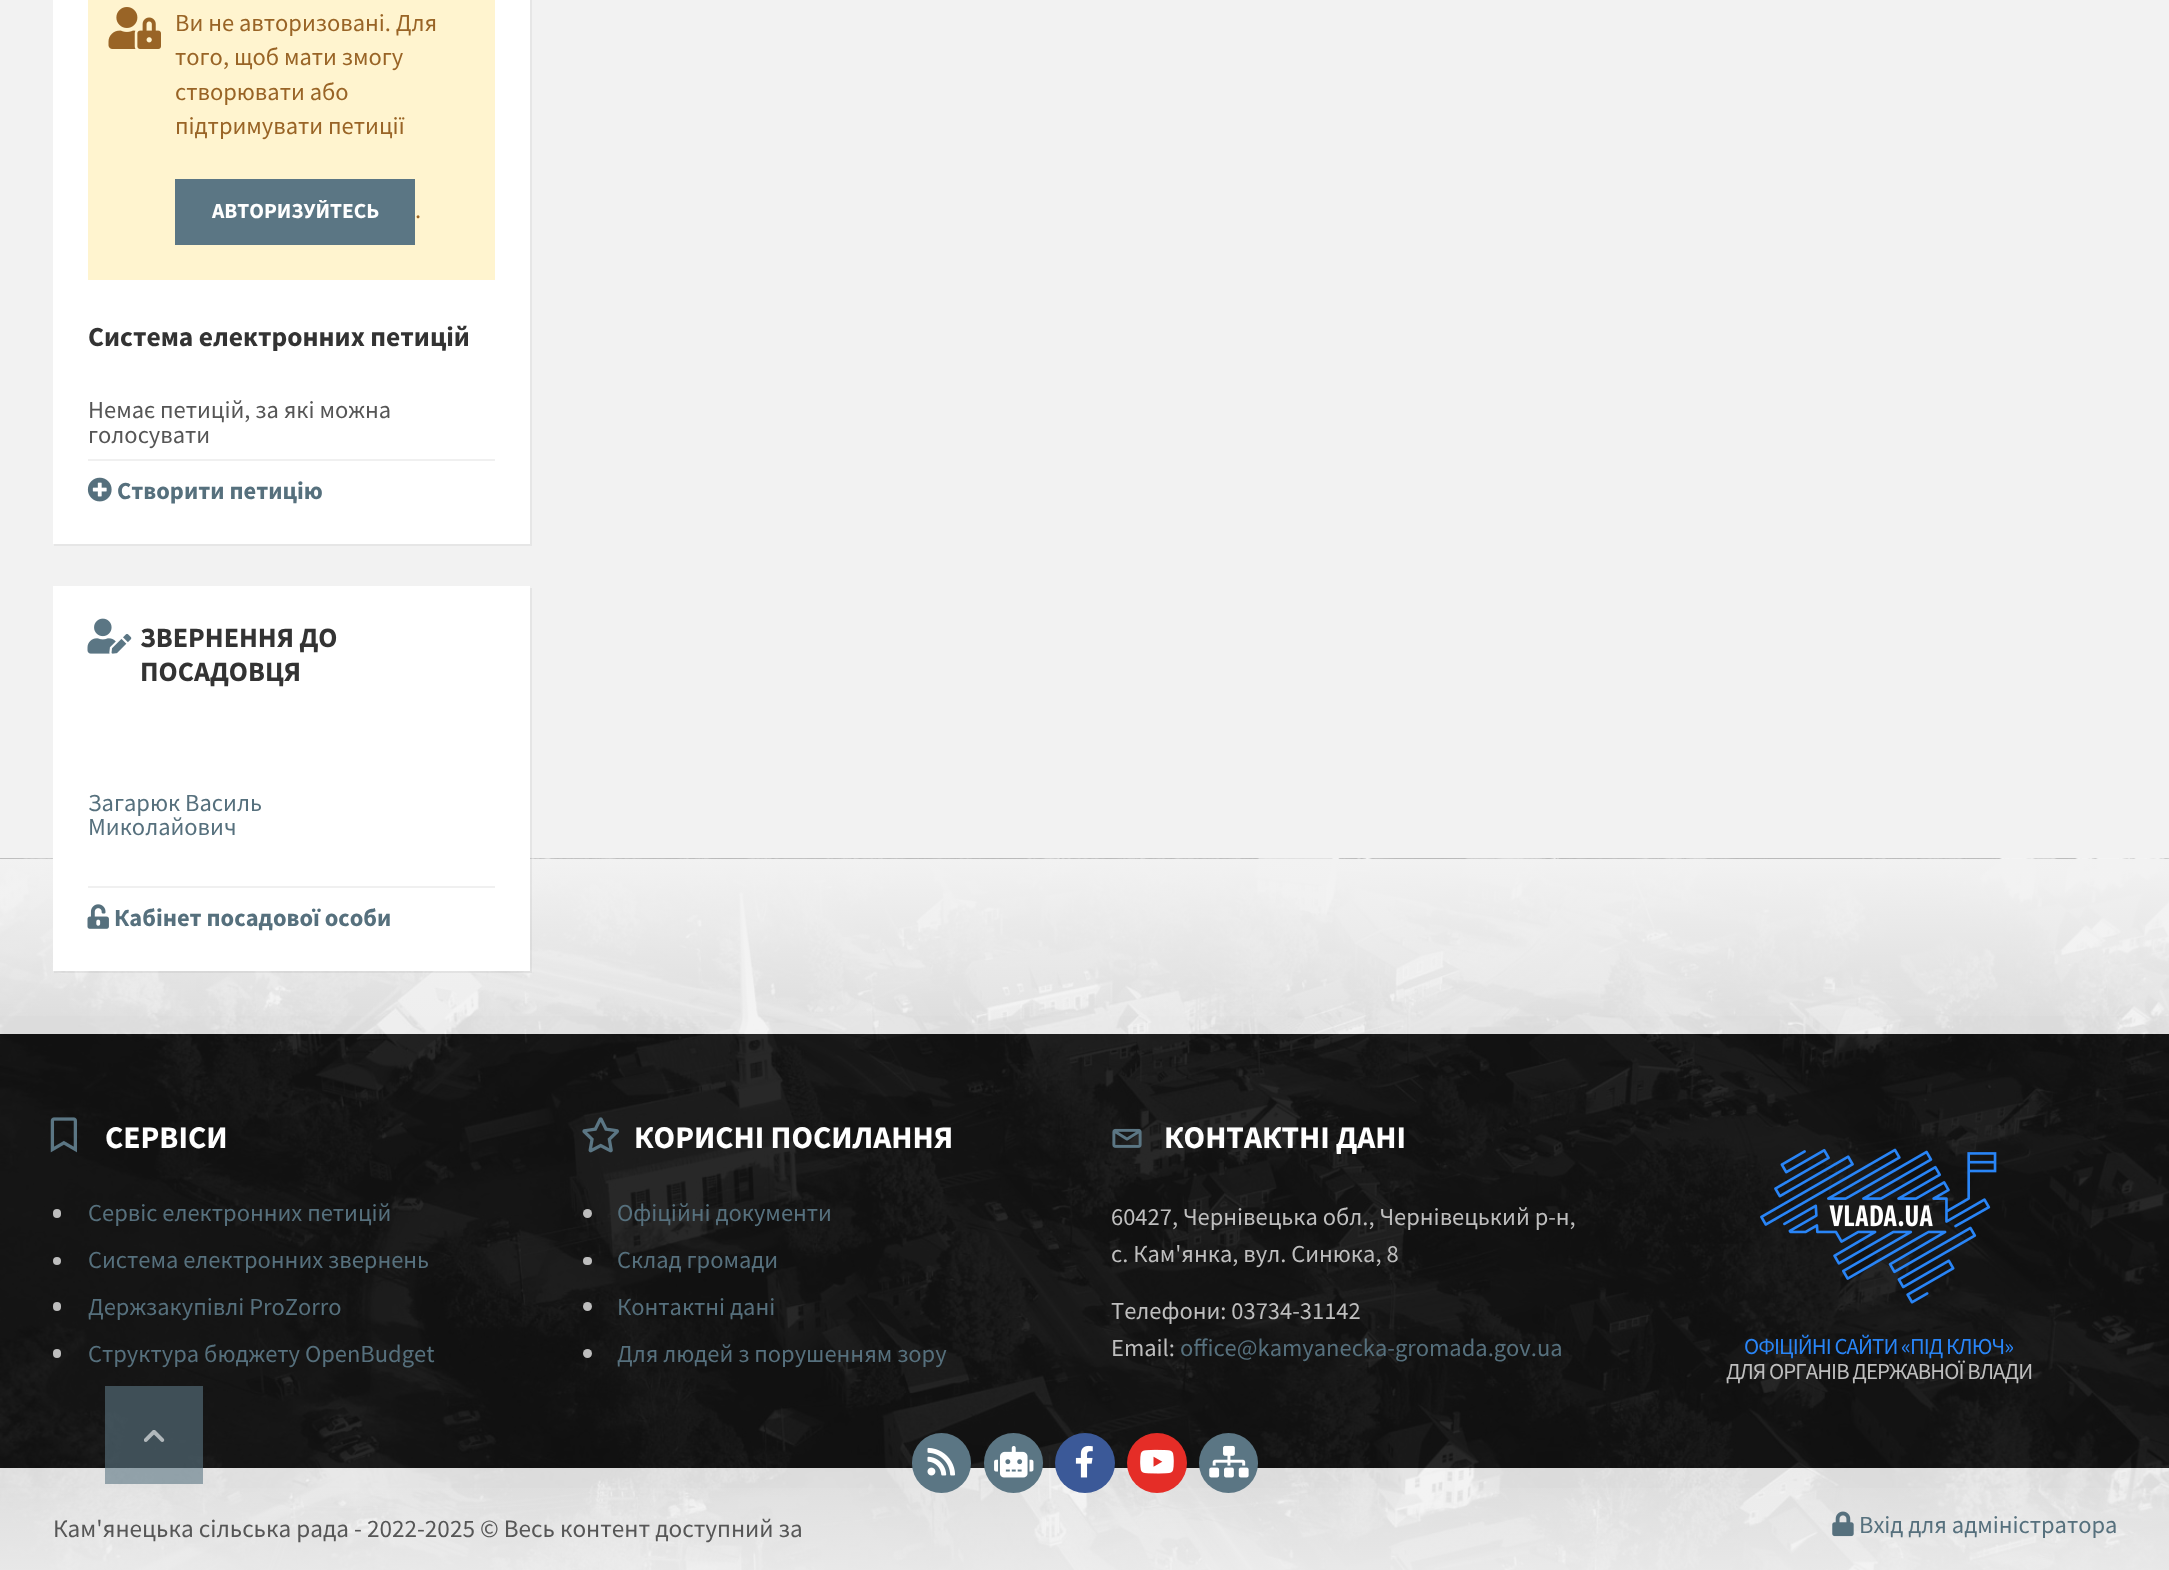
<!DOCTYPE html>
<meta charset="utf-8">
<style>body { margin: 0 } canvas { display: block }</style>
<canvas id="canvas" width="2169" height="1570"></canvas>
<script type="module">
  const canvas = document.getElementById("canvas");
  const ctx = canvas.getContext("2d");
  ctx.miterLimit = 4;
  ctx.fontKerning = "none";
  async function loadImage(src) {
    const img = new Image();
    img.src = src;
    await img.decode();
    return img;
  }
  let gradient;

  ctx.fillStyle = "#f2f2f2";
  ctx.fillRect(0, 0, 2169, 1570);
  ctx.fillStyle = "#e6e6e6";
  ctx.beginPath();
  ctx.moveTo(54, 544);
  ctx.lineTo(54, 546);
  ctx.lineTo(532, 546);
  ctx.lineTo(532, -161);
  ctx.lineTo(530, -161);
  ctx.lineTo(530, 544);
  ctx.closePath();
  ctx.fill();
  ctx.fillStyle = "#ffffff";
  ctx.fillRect(53, 0, 477, 544);
  ctx.fillStyle = "#fff4cf";
  ctx.fillRect(88, 0, 407, 280);
  ctx.drawImage(await loadImage("img1.png"), 108, 7, 53, 42);
  ctx.font = "24.5px Source Sans Pro";
  ctx.fillStyle = "#996426";
  ctx.fillText("Ви не авторизовані. Для", 175, 31);
  ctx.fillText("того, щоб мати змогу", 175, 65);
  ctx.fillText("створювати або", 175, 100);
  ctx.fillText("підтримувати петиції", 175, 134);
  ctx.fillStyle = "#5b7684";
  ctx.fillRect(175, 179, 240, 66);
  ctx.font = "bold 21.5px Source Sans Pro";
  ctx.fillStyle = "#ffffff";
  ctx.fillText("АВТОРИЗУЙТЕСЬ", 212, 218);
  ctx.font = "24.5px Source Sans Pro";
  ctx.fillStyle = "#996426";
  ctx.fillText(".", 415, 218);
  ctx.font = "bold 27.5px Source Sans Pro";
  ctx.fillStyle = "#333333";
  ctx.fillText("Система електронних петицій", 88, 346);
  ctx.font = "24.5px Source Sans Pro";
  ctx.fillStyle = "#565656";
  ctx.fillText("Немає петицій, за які можна", 88, 418);
  ctx.fillText("голосувати", 88, 443);
  ctx.fillStyle = "#f0f0f0";
  ctx.fillRect(88, 459, 407, 2);
  ctx.drawImage(await loadImage("img2.png"), 87, 477, 25, 25);
  ctx.font = "bold 24.5px Source Sans Pro";
  ctx.fillStyle = "#56707d";
  ctx.fillText("Створити петицію", 117, 499);
  ctx.drawImage(await loadImage("img5.png"), 0, 858, 2169, 712);
  ctx.fillStyle = "rgba(242, 242, 242, 0.9)";
  ctx.fillRect(0, 860, 2169, 174);
  gradient = ctx.createLinearGradient(1085, 859, 1085, 1034);
  gradient.addColorStop(0, "#f2f2f2");
  gradient.addColorStop(1, "rgba(242, 242, 242, 0)");
  ctx.fillStyle = gradient;
  ctx.fillRect(0, 859, 2169, 157);
  ctx.fillStyle = "rgba(0, 0, 0, 0.05)";
  ctx.beginPath();
  ctx.moveTo(54, 971);
  ctx.lineTo(54, 973);
  ctx.lineTo(532, 973);
  ctx.lineTo(532, 588);
  ctx.lineTo(530, 588);
  ctx.lineTo(530, 971);
  ctx.closePath();
  ctx.fill();
  ctx.fillStyle = "#ffffff";
  ctx.fillRect(53, 586, 477, 385);
  ctx.drawImage(await loadImage("img3.png"), 87, 618, 45, 36);
  ctx.font = "bold 28px Source Sans Pro";
  ctx.fillStyle = "#333333";
  ctx.fillText("ЗВЕРНЕННЯ ДО", 140, 647);
  ctx.fillText("ПОСАДОВЦЯ", 140, 681);
  ctx.font = "24.5px Source Sans Pro";
  ctx.fillStyle = "#56707d";
  ctx.fillText("Загарюк Василь", 88, 811);
  ctx.fillText("Миколайович", 88, 835);
  ctx.fillStyle = "#f0f0f0";
  ctx.fillRect(88, 886, 407, 2);
  ctx.drawImage(await loadImage("img4.png"), 87, 904, 22, 25);
  ctx.font = "bold 24.5px Source Sans Pro";
  ctx.fillStyle = "#56707d";
  ctx.fillText("Кабінет посадової особи", 114, 926);
  ctx.fillStyle = "rgba(17, 17, 17, 0.9)";
  ctx.fillRect(0, 1034, 2169, 434);
  ctx.drawImage(await loadImage("img6.png"), 50, 1117, 27, 36);
  ctx.font = "bold 31.5px Source Sans Pro";
  ctx.fillStyle = "#ffffff";
  ctx.fillText("СЕРВІСИ", 105, 1148);
  ctx.fillStyle = "#bebebe";
  ctx.beginPath();
  ctx.roundRect(53, 1209, 8, 9, 4);
  ctx.fill();
  ctx.font = "24.5px Source Sans Pro";
  ctx.fillStyle = "#56707d";
  ctx.fillText("Сервіс електронних петицій", 88, 1221);
  ctx.fillStyle = "#bebebe";
  ctx.beginPath();
  ctx.arc(57, 1261, 4, 0, Math.PI * 2);
  ctx.fill();
  ctx.fillStyle = "#56707d";
  ctx.fillText("Система електронних звернень", 88, 1268);
  ctx.fillStyle = "#bebebe";
  ctx.beginPath();
  ctx.roundRect(53, 1302, 8, 9, 4);
  ctx.fill();
  ctx.fillStyle = "#56707d";
  ctx.fillText("Держзакупівлі ProZorro", 88, 1315);
  ctx.fillStyle = "#bebebe";
  ctx.beginPath();
  ctx.roundRect(53, 1349, 8, 9, 4);
  ctx.fill();
  ctx.fillStyle = "#56707d";
  ctx.fillText("Структура бюджету OpenBudget", 88, 1362);
  ctx.drawImage(await loadImage("img7.png"), 582, 1117, 37, 36);
  ctx.font = "bold 31.5px Source Sans Pro";
  ctx.fillStyle = "#ffffff";
  ctx.fillText("КОРИСНІ ПОСИЛАННЯ", 634, 1148);
  ctx.fillStyle = "#bebebe";
  ctx.beginPath();
  ctx.arc(587.5, 1213.5, 4.5, 0, Math.PI * 2);
  ctx.fill();
  ctx.font = "24.5px Source Sans Pro";
  ctx.fillStyle = "#56707d";
  ctx.fillText("Офіційні документи", 617, 1221);
  ctx.fillStyle = "#bebebe";
  ctx.beginPath();
  ctx.roundRect(583, 1257, 9, 8, 4);
  ctx.fill();
  ctx.fillStyle = "#56707d";
  ctx.fillText("Склад громади", 617, 1268);
  ctx.fillStyle = "#bebebe";
  ctx.beginPath();
  ctx.arc(587.5, 1306.5, 4.5, 0, Math.PI * 2);
  ctx.fill();
  ctx.fillStyle = "#56707d";
  ctx.fillText("Контактні дані", 617, 1315);
  ctx.fillStyle = "#bebebe";
  ctx.beginPath();
  ctx.arc(587.5, 1353.5, 4.5, 0, Math.PI * 2);
  ctx.fill();
  ctx.fillStyle = "#56707d";
  ctx.fillText("Для людей з порушенням зору", 617, 1362);
  ctx.drawImage(await loadImage("img8.png"), 1112, 1128, 30, 20);
  ctx.font = "bold 31.5px Source Sans Pro";
  ctx.fillStyle = "#ffffff";
  ctx.fillText("КОНТАКТНІ ДАНІ", 1164, 1148);
  ctx.font = "24.5px Source Sans Pro";
  ctx.fillStyle = "#bebebe";
  ctx.fillText("60427, Чернівецька обл., Чернівецький р-н,", 1111, 1225);
  ctx.fillText("с. Кам'янка, вул. Синюка, 8", 1111, 1262);
  ctx.fillText("Телефони: 03734-31142", 1111, 1319);
  ctx.fillText("Email:", 1111, 1356);
  ctx.fillStyle = "#56707d";
  ctx.fillText("office@kamyanecka-gromada.gov.ua", 1180, 1356);
  ctx.drawImage(await loadImage("img9.png"), 1760, 1148, 237, 156);
  ctx.letterSpacing = "-0.9px";
  ctx.font = "22.75px Source Sans Pro";
  ctx.fillStyle = "#2985f7";
  ctx.fillText("ОФІЦІЙНІ САЙТИ «ПІД КЛЮЧ»", 1744, 1354);
  ctx.fillStyle = "#bebebe";
  ctx.fillText("ДЛЯ ОРГАНІВ ДЕРЖАВНОЇ ВЛАДИ", 1726, 1379);
  ctx.fillStyle = "rgba(242, 242, 242, 0.9)";
  ctx.fillRect(0, 1468, 2169, 102);
  gradient = ctx.createLinearGradient(1085, 1468, 1085, 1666);
  gradient.addColorStop(0, "rgba(242, 242, 242, 0)");
  gradient.addColorStop(1, "#f2f2f2");
  ctx.fillStyle = gradient;
  ctx.fillRect(0, 1488, 2169, 82);
  ctx.fillStyle = "#5b7684";
  ctx.beginPath();
  ctx.roundRect(912, 1433, 59, 60, 29.5);
  ctx.fill();
  ctx.drawImage(await loadImage("img10.png"), 927, 1447, 29, 29);
  ctx.beginPath();
  ctx.roundRect(984, 1433, 59, 60, 29.5);
  ctx.fill();
  ctx.drawImage(await loadImage("img11.png"), 994, 1446, 40, 32);
  ctx.fillStyle = "#3b5998";
  ctx.beginPath();
  ctx.arc(1085, 1463, 30, 0, Math.PI * 2);
  ctx.fill();
  ctx.drawImage(await loadImage("img12.png"), 1075, 1445, 18, 33);
  ctx.fillStyle = "#e52d27";
  ctx.beginPath();
  ctx.arc(1157, 1463, 30, 0, Math.PI * 2);
  ctx.fill();
  ctx.drawImage(await loadImage("img13.png"), 1140, 1449, 34, 25);
  ctx.fillStyle = "#5b7684";
  ctx.beginPath();
  ctx.roundRect(1199, 1433, 59, 60, 29.5);
  ctx.fill();
  ctx.drawImage(await loadImage("img14.png"), 1209, 1445, 40, 33);
  ctx.letterSpacing = "0px";
  ctx.font = "25.2px Source Sans Pro";
  ctx.fillStyle = "#565656";
  ctx.fillText("Кам'янецька сільська рада - 2022-2025 © Весь контент доступний за", 53, 1537);
  ctx.drawImage(await loadImage("img15.png"), 1832, 1511, 22, 26);
  ctx.font = "24.5px Source Sans Pro";
  ctx.fillStyle = "#56707d";
  ctx.fillText("Вхід для адміністратора", 1859, 1533);
  ctx.fillStyle = "rgba(91, 118, 132, 0.6)";
  ctx.fillRect(105, 1386, 98, 98);
  ctx.drawImage(await loadImage("img16.png"), 144, 1430, 21, 12);
</script>
